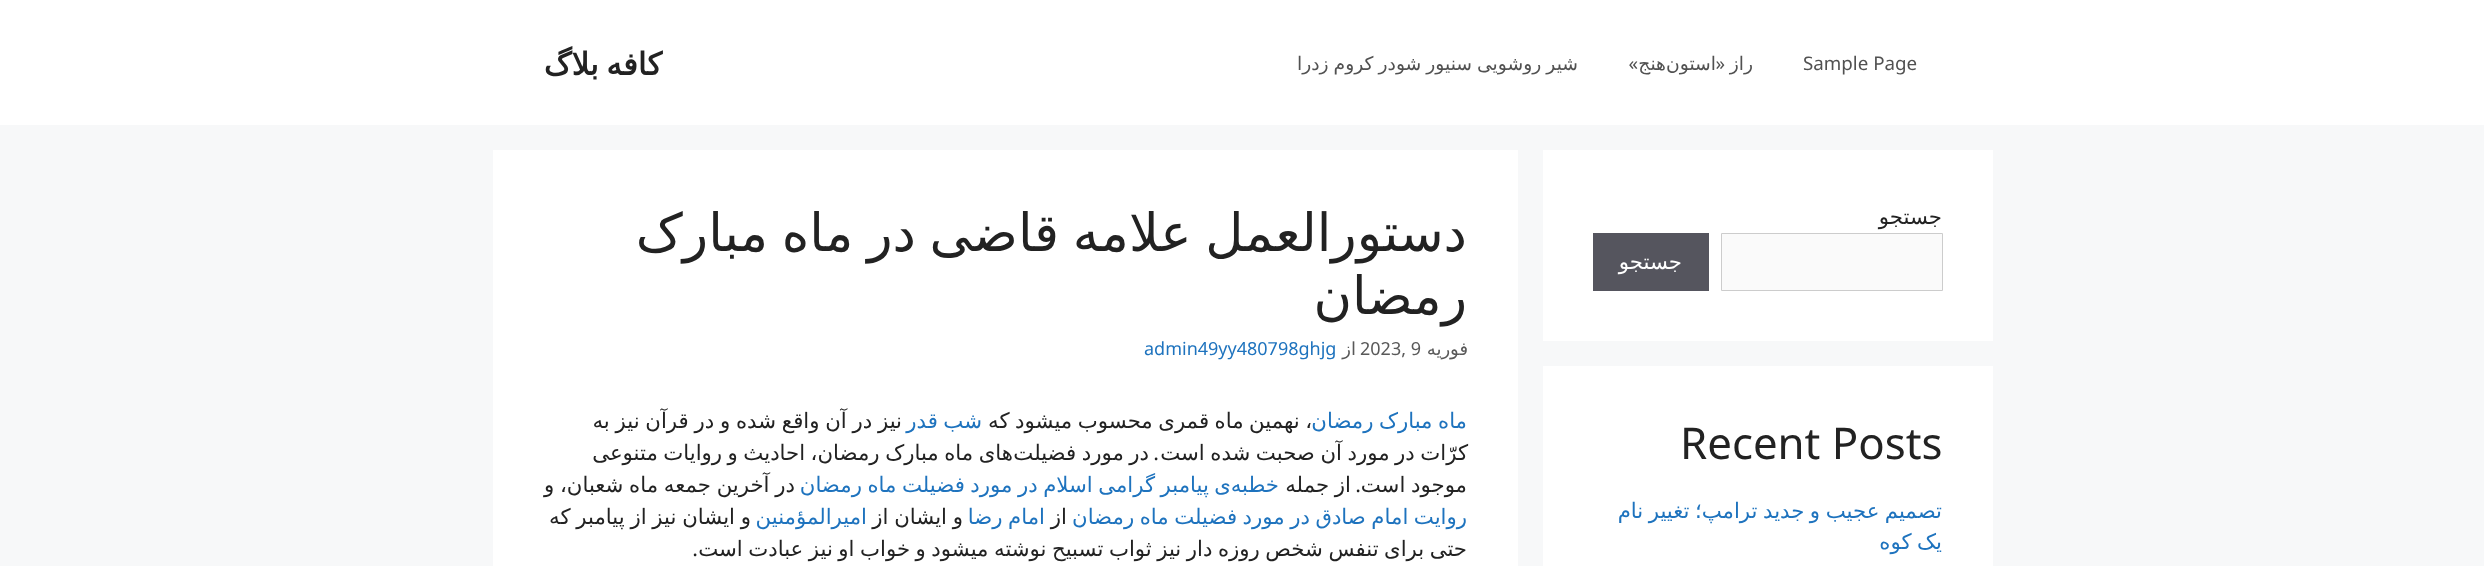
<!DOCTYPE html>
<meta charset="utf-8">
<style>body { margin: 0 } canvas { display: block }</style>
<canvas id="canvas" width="2484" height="566"></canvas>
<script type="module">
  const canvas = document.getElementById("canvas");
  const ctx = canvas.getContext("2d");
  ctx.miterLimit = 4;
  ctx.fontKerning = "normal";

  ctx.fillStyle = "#f7f8f9";
  ctx.fillRect(0, 0, 2484, 566);
  ctx.fillStyle = "#ffffff";
  ctx.fillRect(0, 0, 2484, 125);
  ctx.font = "18.75px Noto Sans";
  ctx.fillStyle = "#515151";
  ctx.fillText("Sample Page", 1803, 70);
  ctx.direction = "rtl";
  ctx.font = "18.75px DejaVu Sans";
  ctx.fillText("راز", 1753, 70);
  ctx.font = "18.75px Noto Sans";
  ctx.fillText("«", 1725, 70);
  ctx.font = "18.75px DejaVu Sans";
  ctx.fillText("استون", 1716, 70);
  ctx.fillText("هنج", 1666, 70);
  ctx.font = "18.75px Noto Sans";
  ctx.fillText("»", 1638, 70);
  ctx.wordSpacing = "-1px";
  ctx.font = "18.75px DejaVu Sans";
  ctx.fillText("شیر روشویی سنیور شودر کروم زدرا", 1578, 70);
  ctx.wordSpacing = "-2px";
  ctx.font = "bold 31px DejaVu Sans";
  ctx.fillStyle = "#222222";
  ctx.fillText("کافه بلاگ", 662, 75);
  ctx.fillStyle = "#ffffff";
  ctx.fillRect(1543, 150, 450, 191);
  ctx.wordSpacing = "0px";
  ctx.font = "21.25px DejaVu Sans";
  ctx.fillStyle = "#222222";
  ctx.fillText("جستجو", 1942, 224);
  ctx.fillStyle = "#fafafa";
  ctx.beginPath();
  ctx.rect(1721.5, 233.5, 221, 57);
  ctx.fill();
  ctx.strokeStyle = "#cccccc";
  ctx.stroke();
  ctx.fillStyle = "#55555e";
  ctx.fillRect(1593, 233, 116, 58);
  ctx.fillStyle = "#ffffff";
  ctx.fillText("جستجو", 1682, 269);
  ctx.fillRect(1543, 366, 450, 200);
  ctx.direction = "ltr";
  ctx.font = "43.75px Noto Sans";
  ctx.fillStyle = "#222222";
  ctx.fillText("Recent Posts", 1680, 459);
  ctx.wordSpacing = "-1.25px";
  ctx.direction = "rtl";
  ctx.font = "21.25px DejaVu Sans";
  ctx.fillStyle = "#1e73be";
  ctx.fillText("تصمیم عجیب و جدید ترامپ؛ تغییر نام", 1942, 518);
  ctx.fillText("یک کوه", 1942, 549);
  ctx.fillStyle = "#ffffff";
  ctx.fillRect(493, 150, 1025, 416);
  ctx.wordSpacing = "-3px";
  ctx.font = "52.5px DejaVu Sans";
  ctx.fillStyle = "#222222";
  ctx.fillText("دستورالعمل علامه قاضی در ماه مبارک", 1467, 251);
  ctx.wordSpacing = "0px";
  ctx.fillText("رمضان", 1467, 314);
  ctx.font = "18px DejaVu Sans";
  ctx.fillStyle = "#595959";
  ctx.fillText("فوریه", 1468, 355);
  ctx.direction = "ltr";
  ctx.font = "18px Noto Sans";
  ctx.fillText("2023, 9", 1360, 355);
  ctx.direction = "rtl";
  ctx.font = "18px DejaVu Sans";
  ctx.fillText("از", 1356, 355);
  ctx.direction = "ltr";
  ctx.font = "18px Noto Sans";
  ctx.fillStyle = "#1e73be";
  ctx.fillText("admin49yy480798ghjg", 1144, 355);
  ctx.wordSpacing = "-1.25px";
  ctx.direction = "rtl";
  ctx.font = "21.25px DejaVu Sans";
  ctx.fillText("ماه مبارک رمضان", 1467, 428);
  ctx.fillStyle = "#222222";
  ctx.fillText("، نهمین ماه قمری محسوب میشود که", 1312, 428);
  ctx.fillStyle = "#1e73be";
  ctx.fillText("شب قدر", 982, 428);
  ctx.wordSpacing = "-1px";
  ctx.fillStyle = "#222222";
  ctx.fillText("نیز در آن واقع شده و در قرآن نیز به", 902, 428);
  ctx.wordSpacing = "-1.25px";
  ctx.fillText("کرّات در مورد آن صحبت شده است", 1468, 460);
  ctx.wordSpacing = "0px";
  ctx.font = "21.25px Noto Sans";
  ctx.fillText(".", 1159, 460);
  ctx.wordSpacing = "-1.25px";
  ctx.font = "21.25px DejaVu Sans";
  ctx.fillText("های ماه مبارک رمضان، احادیث و روایات متنوعی", 1013, 460);
  ctx.fillText("در مورد فضیلت", 1149, 460);
  ctx.wordSpacing = "-1px";
  ctx.fillText("موجود است", 1467, 492);
  ctx.wordSpacing = "0px";
  ctx.font = "21.25px Noto Sans";
  ctx.fillText(".", 1361, 492);
  ctx.wordSpacing = "-1px";
  ctx.font = "21.25px DejaVu Sans";
  ctx.fillText("از جمله", 1351, 492);
  ctx.wordSpacing = "-1.25px";
  ctx.fillStyle = "#1e73be";
  ctx.fillText("ی پیامبر گرامی اسلام در مورد فضیلت ماه رمضان", 1231, 492);
  ctx.wordSpacing = "0px";
  ctx.fillText("خطبه", 1279, 492);
  ctx.wordSpacing = "-1px";
  ctx.fillStyle = "#222222";
  ctx.fillText("در آخرین جمعه ماه شعبان، و", 795, 492);
  ctx.wordSpacing = "-1.25px";
  ctx.fillStyle = "#1e73be";
  ctx.fillText("روایت امام صادق در مورد فضیلت ماه رمضان", 1467, 524);
  ctx.wordSpacing = "0px";
  ctx.fillStyle = "#222222";
  ctx.fillText("از", 1067, 524);
  ctx.wordSpacing = "-1.25px";
  ctx.fillStyle = "#1e73be";
  ctx.fillText("امام رضا", 1045, 524);
  ctx.wordSpacing = "-1px";
  ctx.fillStyle = "#222222";
  ctx.fillText("و ایشان از", 963, 524);
  ctx.wordSpacing = "0px";
  ctx.fillStyle = "#1e73be";
  ctx.fillText("امیرالمؤمنین", 867, 524);
  ctx.wordSpacing = "-1px";
  ctx.fillStyle = "#222222";
  ctx.fillText("و ایشان نیز از پیامبر که", 751, 524);
  ctx.wordSpacing = "-1.25px";
  ctx.fillText("حتی برای تنفس شخص روزه دار نیز ثواب تسبیح نوشته میشود و خواب او نیز عبادت است", 1467, 556);
  ctx.wordSpacing = "0px";
  ctx.font = "21.25px Noto Sans";
  ctx.fillText(".", 698, 556);
</script>
